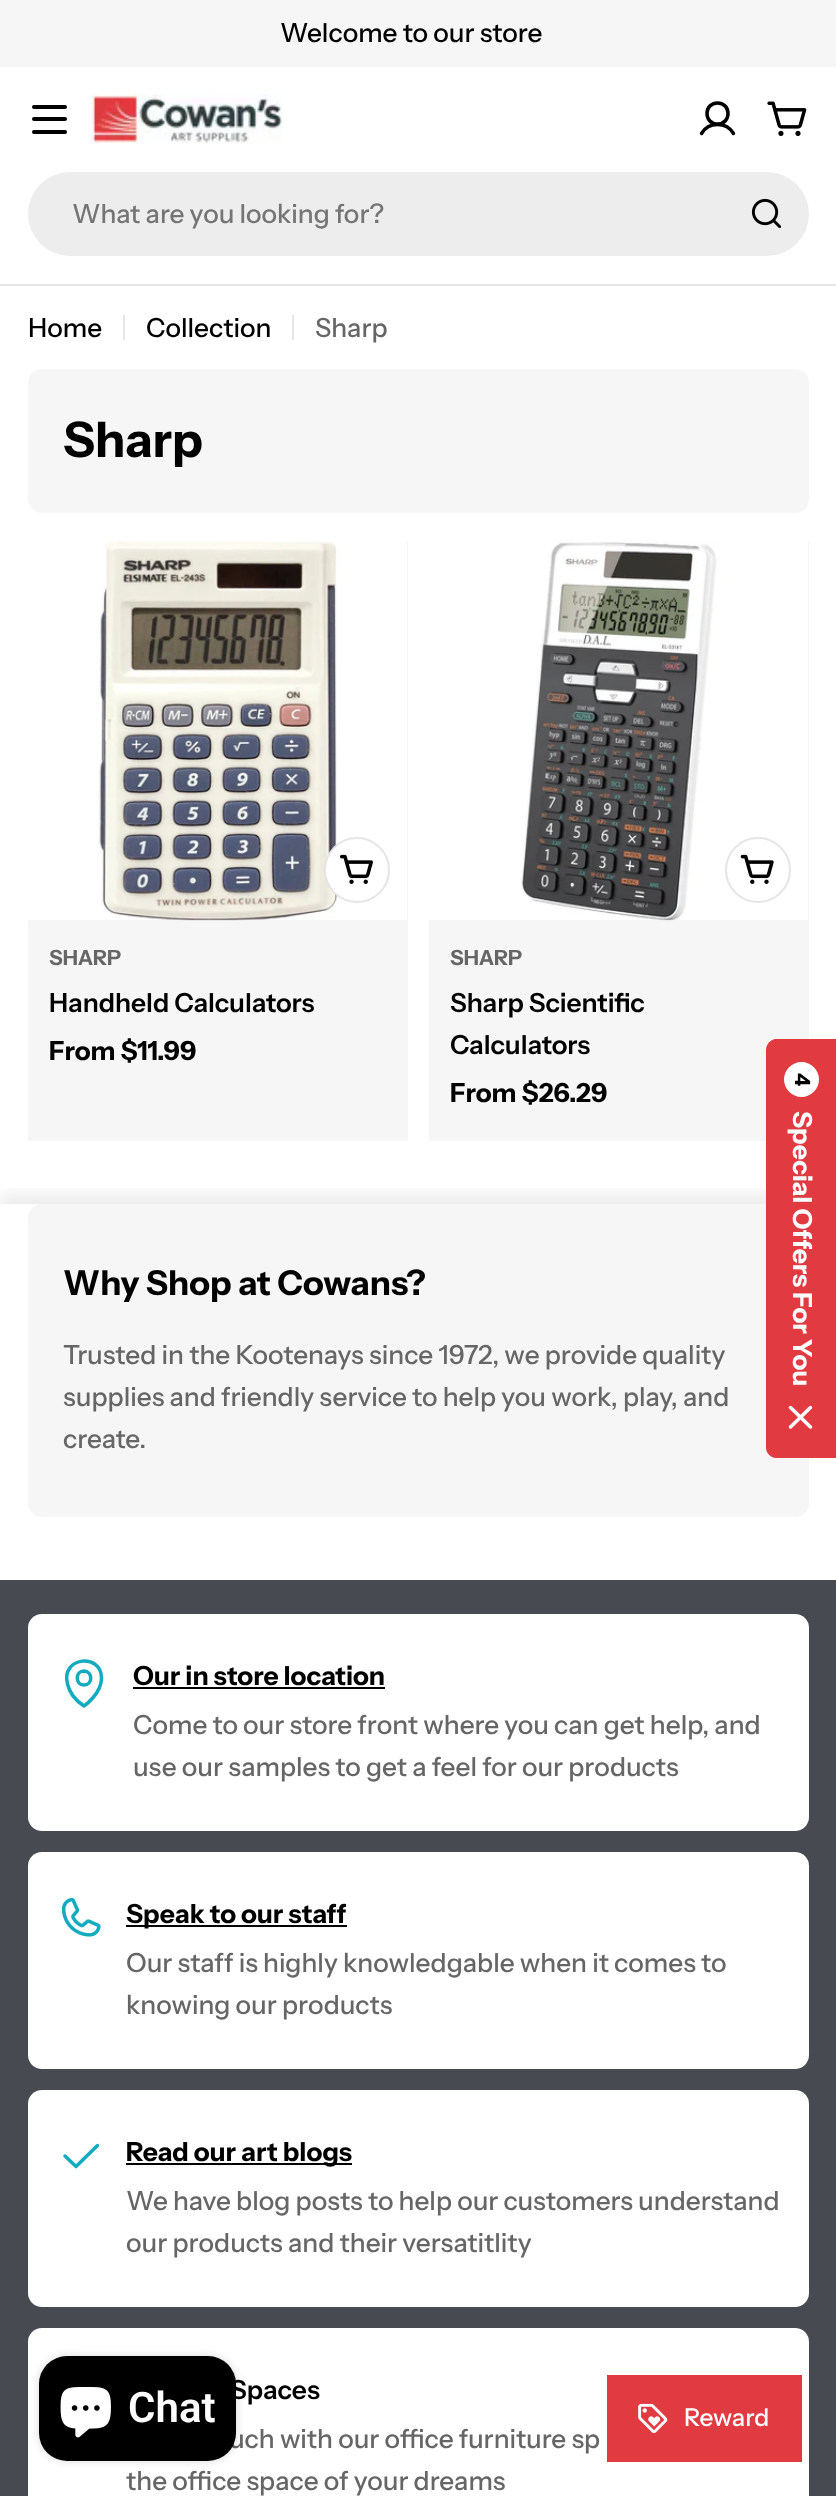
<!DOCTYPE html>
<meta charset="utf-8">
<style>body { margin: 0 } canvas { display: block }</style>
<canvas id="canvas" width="836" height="2496"></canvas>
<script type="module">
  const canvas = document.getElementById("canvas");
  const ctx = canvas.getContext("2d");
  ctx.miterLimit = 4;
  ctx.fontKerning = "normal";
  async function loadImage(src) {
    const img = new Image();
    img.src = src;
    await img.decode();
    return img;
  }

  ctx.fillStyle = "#ffffff";
  ctx.fillRect(0, 0, 836, 2496);
  ctx.fillStyle = "#f6f6f6";
  ctx.fillRect(0, 0, 836, 67);
  ctx.font = "500 26.25px Instrument Sans";
  ctx.fillStyle = "#000000";
  ctx.fillText("Welcome to our store", 280, 42);
  ctx.beginPath();
  ctx.roundRect(32, 117, 35, 4, 2);
  ctx.fill();
  ctx.beginPath();
  ctx.roundRect(32, 105, 35, 4, 2);
  ctx.fill();
  ctx.beginPath();
  ctx.roundRect(32, 130, 35, 4, 2);
  ctx.fill();
  ctx.drawImage(await loadImage("img1.png"), 91, 94, 193, 50);
  ctx.beginPath();
  ctx.moveTo(717.5, 124);
  ctx.bezierCurveTo(731.5, 124, 731.5, 103, 717.5, 103);
  ctx.bezierCurveTo(703.5, 103, 703.5, 124, 717.5, 124);
  ctx.closePath();
  ctx.moveTo(701.5, 133.5);
  ctx.bezierCurveTo(708.5, 121.5, 726.5, 121.5, 733.5, 133.5);
  ctx.strokeStyle = "#000000";
  ctx.lineWidth = 3.5;
  ctx.lineCap = "round";
  ctx.lineJoin = "round";
  ctx.stroke();
  ctx.drawImage(await loadImage("img2.png"), 767, 101, 40, 35);
  ctx.fillStyle = "#ededed";
  ctx.beginPath();
  ctx.roundRect(28, 172, 781, 84, 42);
  ctx.fill();
  ctx.fillStyle = "#757575";
  ctx.fillText("What are you looking for?", 72, 223);
  ctx.drawImage(await loadImage("img3.png"), 751, 198, 31, 31);
  ctx.fillStyle = "#e5e5e5";
  ctx.fillRect(0, 284, 836, 2);
  ctx.fillStyle = "#000000";
  ctx.fillText("Home", 28, 337);
  ctx.fillStyle = "#e6e6e6";
  ctx.fillRect(123, 315, 2, 25);
  ctx.fillStyle = "#000000";
  ctx.fillText("Collection", 146, 337);
  ctx.fillStyle = "#e6e6e6";
  ctx.fillRect(292, 315, 2, 25);
  ctx.fillStyle = "#666666";
  ctx.fillText("Sharp", 315, 337);
  ctx.fillStyle = "#f6f6f6";
  ctx.beginPath();
  ctx.roundRect(28, 369, 781, 144, 14);
  ctx.fill();
  ctx.font = "bold 49px Instrument Sans";
  ctx.fillStyle = "#000000";
  ctx.fillText("Sharp", 63, 457);
  ctx.fillStyle = "#f6f6f6";
  ctx.fillRect(28, 541, 380, 600);
  ctx.drawImage(await loadImage("img4.png"), 28, 541, 379, 380);
  ctx.fillStyle = "#ffffff";
  ctx.beginPath();
  ctx.arc(357, 870, 32, 0, Math.PI * 2);
  ctx.fill();
  ctx.strokeStyle = "#e5e5e5";
  ctx.lineWidth = 2;
  ctx.stroke();
  ctx.drawImage(await loadImage("img5.png"), 340, 854, 33, 30);
  ctx.font = "bold 21px Instrument Sans";
  ctx.fillStyle = "#666666";
  ctx.fillText("SHARP", 49, 965);
  ctx.font = "600 26.25px Instrument Sans";
  ctx.fillStyle = "#000000";
  ctx.fillText("Handheld Calculators", 49, 1012);
  ctx.font = "bold 26.25px Instrument Sans";
  ctx.fillText("From $11.99", 49, 1060);
  ctx.fillStyle = "#f6f6f6";
  ctx.fillRect(429, 541, 380, 600);
  ctx.drawImage(await loadImage("img6.png"), 429, 541, 379, 380);
  ctx.beginPath();
  ctx.arc(758, 870, 32, 0, Math.PI * 2);
  ctx.stroke();
  ctx.drawImage(await loadImage("img7.png"), 740, 854, 34, 30);
  ctx.font = "bold 21px Instrument Sans";
  ctx.fillStyle = "#666666";
  ctx.fillText("SHARP", 450, 965);
  ctx.font = "600 26.25px Instrument Sans";
  ctx.fillStyle = "#000000";
  ctx.fillText("Sharp Scientific", 450, 1012);
  ctx.fillText("Calculators", 450, 1054);
  ctx.font = "bold 26.25px Instrument Sans";
  ctx.fillText("From $26.29", 450, 1102);
  ctx.save();
  ctx.beginPath();
  ctx.rect(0, 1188, 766, 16);
  ctx.clip();
  ctx.fillStyle = "rgba(0, 0, 0, 0.08)";
  ctx.filter = "blur(9px)";
  ctx.beginPath();
  ctx.rect(0, 1194, 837, 126);
  ctx.fill();
  ctx.filter = "none";
  ctx.restore();
  ctx.fillStyle = "#f6f6f6";
  ctx.beginPath();
  ctx.roundRect(28, 1204, 781, 313, 14);
  ctx.fill();
  ctx.font = "bold 34.25px Instrument Sans";
  ctx.fillStyle = "#000000";
  ctx.fillText("Why Shop at Cowans?", 63, 1295);
  ctx.font = "500 26.25px Instrument Sans";
  ctx.fillStyle = "#666666";
  ctx.fillText("Trusted in the Kootenays since 1972, we provide quality", 63, 1364);
  ctx.fillText("supplies and friendly service to help you work, play, and", 63, 1406);
  ctx.fillText("create.", 63, 1448);
  ctx.fillStyle = "#474a51";
  ctx.fillRect(0, 1580, 836, 916);
  ctx.fillStyle = "#ffffff";
  ctx.beginPath();
  ctx.roundRect(28, 1614, 781, 217, 14);
  ctx.fill();
  ctx.beginPath();
  ctx.moveTo(84, 1685);
  ctx.bezierCurveTo(93, 1685, 93, 1671.5, 84, 1671);
  ctx.bezierCurveTo(75, 1671, 75, 1685, 84, 1685);
  ctx.closePath();
  ctx.moveTo(101.5, 1678);
  ctx.bezierCurveTo(101.5, 1694, 84, 1706, 84, 1706);
  ctx.bezierCurveTo(76.5, 1701, 69.5, 1693, 67.5, 1684);
  ctx.bezierCurveTo(60.5, 1656.5, 101.5, 1652.5, 101.5, 1678);
  ctx.closePath();
  ctx.strokeStyle = "#13abbe";
  ctx.lineWidth = 3.5;
  ctx.stroke();
  ctx.font = "bold 26.25px Instrument Sans";
  ctx.fillStyle = "#000000";
  ctx.fillText("Our in store location", 133, 1685);
  ctx.fillRect(133, 1687, 252, 2);
  ctx.font = "500 26.25px Instrument Sans";
  ctx.fillStyle = "#666666";
  ctx.fillText("Come to our store front where you can get help, and", 133, 1734);
  ctx.fillText("use our samples to get a feel for our products", 133, 1776);
  ctx.fillStyle = "#ffffff";
  ctx.beginPath();
  ctx.roundRect(28, 1852, 781, 217, 14);
  ctx.fill();
  ctx.drawImage(await loadImage("img8.png"), 61, 1897, 40, 40);
  ctx.fillStyle = "#000000";
  ctx.fillRect(126, 1925, 221, 2);
  ctx.font = "bold 26.25px Instrument Sans";
  ctx.fillText("Speak to our staff", 126, 1923);
  ctx.font = "500 26.25px Instrument Sans";
  ctx.fillStyle = "#666666";
  ctx.fillText("Our staff is highly knowledgable when it comes to", 126, 1972);
  ctx.fillText("knowing our products", 126, 2014);
  ctx.fillStyle = "#ffffff";
  ctx.beginPath();
  ctx.roundRect(28, 2090, 781, 217, 14);
  ctx.fill();
  ctx.beginPath();
  ctx.moveTo(97.5, 2145.5);
  ctx.lineTo(76, 2166.5);
  ctx.lineTo(65, 2156);
  ctx.stroke();
  ctx.fillStyle = "#000000";
  ctx.fillRect(126, 2163, 226, 2);
  ctx.font = "bold 26.25px Instrument Sans";
  ctx.fillText("Read our art blogs", 126, 2161);
  ctx.font = "500 26.25px Instrument Sans";
  ctx.fillStyle = "#666666";
  ctx.fillText("We have blog posts to help our customers understand", 126, 2210);
  ctx.fillText("our products and their versatitlity", 126, 2252);
  ctx.fillStyle = "#ffffff";
  ctx.beginPath();
  ctx.roundRect(28, 2328, 781, 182, 14);
  ctx.fill();
  ctx.font = "600 26.25px Instrument Sans";
  ctx.fillStyle = "#000000";
  ctx.fillText("Spaces", 230, 2399);
  ctx.font = "500 26.25px Instrument Sans";
  ctx.fillStyle = "#666666";
  ctx.fillText("uch with our office furniture sp", 229, 2448);
  ctx.fillText("the office space of your dreams", 126, 2490);
  ctx.fillStyle = "#e23a41";
  ctx.beginPath();
  ctx.moveTo(766, 1448);
  ctx.lineTo(766, 1050);
  ctx.bezierCurveTo(766, 1044, 771, 1039, 777, 1039);
  ctx.lineTo(836, 1039);
  ctx.lineTo(836, 1458);
  ctx.lineTo(777, 1458);
  ctx.bezierCurveTo(771, 1458, 766, 1453, 766, 1448);
  ctx.closePath();
  ctx.fill();
  ctx.beginPath();
  ctx.moveTo(767.5, 1447.5);
  ctx.lineTo(767.5, 1049.5);
  ctx.bezierCurveTo(767.5, 1044.5, 771.5, 1040, 777, 1040);
  ctx.lineTo(835.5, 1040);
  ctx.lineTo(835.5, 1457);
  ctx.lineTo(777, 1457);
  ctx.bezierCurveTo(771.5, 1457, 767.5, 1453, 767.5, 1447.5);
  ctx.closePath();
  ctx.strokeStyle = "#e23a41";
  ctx.lineWidth = 1.8;
  ctx.lineCap = "butt";
  ctx.lineJoin = "miter";
  ctx.stroke();
  ctx.fillStyle = "#ffffff";
  ctx.beginPath();
  ctx.moveTo(819, 1079.5);
  ctx.bezierCurveTo(819, 1089, 811, 1097, 801.5, 1097);
  ctx.bezierCurveTo(792, 1097, 784, 1089, 784, 1079.5);
  ctx.bezierCurveTo(784, 1070, 792, 1062, 801.5, 1062);
  ctx.bezierCurveTo(811, 1062, 819, 1070, 819, 1079.5);
  ctx.closePath();
  ctx.fill();
  ctx.font = "bold 21px Instrument Sans";
  ctx.fillStyle = "#000000";
  ctx.save();
  ctx.translate(795, 1073);
  ctx.rotate(90 * Math.PI / 180);
  ctx.fillText("4", 0, 0);
  ctx.restore();
  ctx.font = "bold 26.25px Instrument Sans";
  ctx.fillStyle = "#ffffff";
  ctx.save();
  ctx.translate(793, 1111);
  ctx.rotate(90 * Math.PI / 180);
  ctx.fillText("Special Offers For You", 0, 0);
  ctx.restore();
  ctx.beginPath();
  ctx.moveTo(810.5, 1427);
  ctx.lineTo(790.5, 1407.5);
  ctx.moveTo(790.5, 1427);
  ctx.lineTo(810.5, 1407.5);
  ctx.strokeStyle = "#ffffff";
  ctx.lineWidth = 3.5;
  ctx.lineCap = "round";
  ctx.lineJoin = "round";
  ctx.stroke();
  ctx.fillStyle = "rgba(0, 0, 0, 0.15)";
  ctx.filter = "blur(4.5px)";
  ctx.beginPath();
  ctx.roundRect(39, 2356, 197, 105, 28);
  ctx.fill();
  ctx.filter = "none";
  ctx.fillStyle = "#000000";
  ctx.beginPath();
  ctx.roundRect(39, 2356, 197, 105, 28);
  ctx.fill();
  ctx.drawImage(await loadImage("img9.png"), 60, 2387, 51, 51);
  ctx.font = "600 42px Roboto";
  ctx.fillStyle = "#ffffff";
  ctx.fillText("Chat", 128, 2422);
  ctx.fillStyle = "#e23a41";
  ctx.fillRect(607, 2375, 195, 87);
  ctx.drawImage(await loadImage("img10.png"), 638, 2403, 30, 30);
  ctx.font = "500 24.5px Instrument Sans";
  ctx.fillStyle = "#ffffff";
  ctx.fillText("Reward", 684, 2426);
</script>
